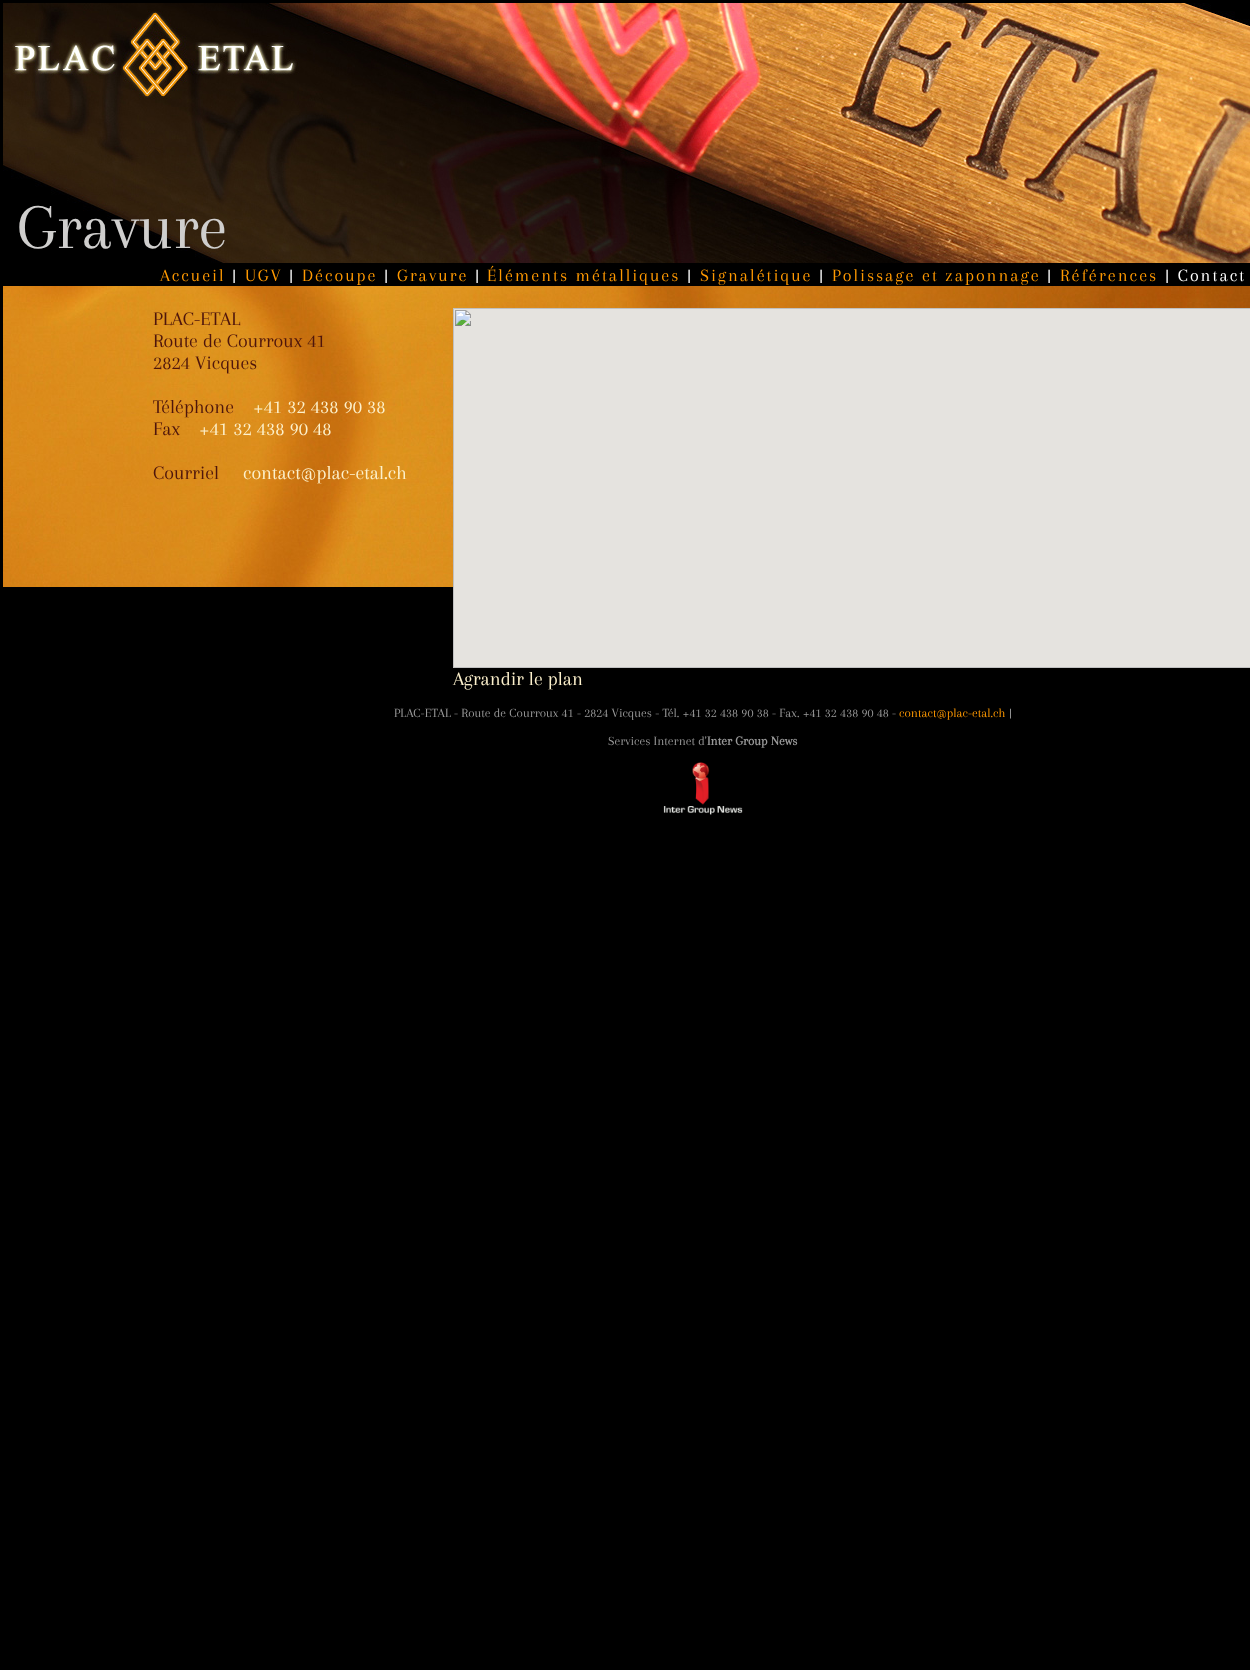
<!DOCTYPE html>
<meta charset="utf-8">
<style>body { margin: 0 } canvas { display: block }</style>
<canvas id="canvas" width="1250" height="1670"></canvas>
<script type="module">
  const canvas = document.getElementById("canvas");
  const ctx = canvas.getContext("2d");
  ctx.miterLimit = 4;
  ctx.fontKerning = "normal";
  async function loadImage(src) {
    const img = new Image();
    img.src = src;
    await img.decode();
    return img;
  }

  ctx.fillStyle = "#000000";
  ctx.fillRect(0, 0, 1250, 1670);
  ctx.drawImage(await loadImage("img1.png"), 3, 3, 1247, 260);
  ctx.font = "66px Arapey";
  ctx.fillStyle = "#cfcecd";
  ctx.fillText("Gravure", 17, 248);
  ctx.letterSpacing = "2px";
  ctx.font = "18px Arapey";
  ctx.fillStyle = "#ff9900";
  ctx.fillText("Accueil", 160, 281);
  ctx.fillStyle = "#ffffff";
  ctx.fillText("|", 232, 281);
  ctx.fillStyle = "#ff9900";
  ctx.fillText("UGV", 245, 281);
  ctx.fillStyle = "#ffffff";
  ctx.fillText("|", 289, 281);
  ctx.fillStyle = "#ff9900";
  ctx.fillText("Découpe", 302, 281);
  ctx.fillStyle = "#ffffff";
  ctx.fillText("|", 384, 281);
  ctx.fillStyle = "#ff9900";
  ctx.fillText("Gravure", 397, 281);
  ctx.fillStyle = "#ffffff";
  ctx.fillText("|", 475, 281);
  ctx.fillStyle = "#ff9900";
  ctx.fillText("Éléments métalliques", 487, 281);
  ctx.fillStyle = "#ffffff";
  ctx.fillText("|", 687, 281);
  ctx.fillStyle = "#ff9900";
  ctx.fillText("Signalétique", 700, 281);
  ctx.fillStyle = "#ffffff";
  ctx.fillText("|", 819, 281);
  ctx.fillStyle = "#ff9900";
  ctx.fillText("Polissage et zaponnage", 832, 281);
  ctx.fillStyle = "#ffffff";
  ctx.fillText("|", 1047, 281);
  ctx.fillStyle = "#ff9900";
  ctx.fillText("Références", 1060, 281);
  ctx.fillStyle = "#ffffff";
  ctx.fillText("| Contact", 1165, 281);
  ctx.drawImage(await loadImage("img2.png"), 3, 286, 1247, 302);
  ctx.letterSpacing = "0px";
  ctx.font = "20px Arapey";
  ctx.fillStyle = "#4e150c";
  ctx.fillText("PLAC-ETAL", 153, 325);
  ctx.fillText("Route de Courroux 41", 153, 347);
  ctx.fillText("2824 Vicques", 153, 369);
  ctx.fillText("Téléphone", 153, 413);
  ctx.fillStyle = "#fdf1cc";
  ctx.fillText("+41 32 438 90 38", 253, 413);
  ctx.fillStyle = "#4e150c";
  ctx.fillText("Fax", 153, 435);
  ctx.fillStyle = "#fdf1cc";
  ctx.fillText("+41 32 438 90 48", 199, 435);
  ctx.fillStyle = "#4e150c";
  ctx.fillText("Courriel", 153, 479);
  ctx.fillStyle = "#fdf1cc";
  ctx.fillText("contact@plac-etal.ch", 243, 479);
  ctx.drawImage(await loadImage("img3.png"), 453, 308, 797, 360);
  ctx.fillText("Agrandir le plan", 453, 685);
  ctx.font = "13px Arapey";
  ctx.fillStyle = "#999999";
  ctx.fillText("PLAC-ETAL - Route de Courroux 41 - 2824 Vicques - Tél. +41 32 438 90 38 - Fax. +41 32 438 90 48 -", 394, 717);
  ctx.fillStyle = "#ff9900";
  ctx.fillText("contact@plac-etal.ch", 899, 717);
  ctx.fillStyle = "#999999";
  ctx.fillText("|", 1009, 717);
  ctx.fillText("Services Internet d'", 608, 745);
  ctx.font = "bold 13px Arapey";
  ctx.fillText("Inter Group News", 707, 745);
  ctx.drawImage(await loadImage("img4.png"), 663, 762, 80, 53);
</script>
